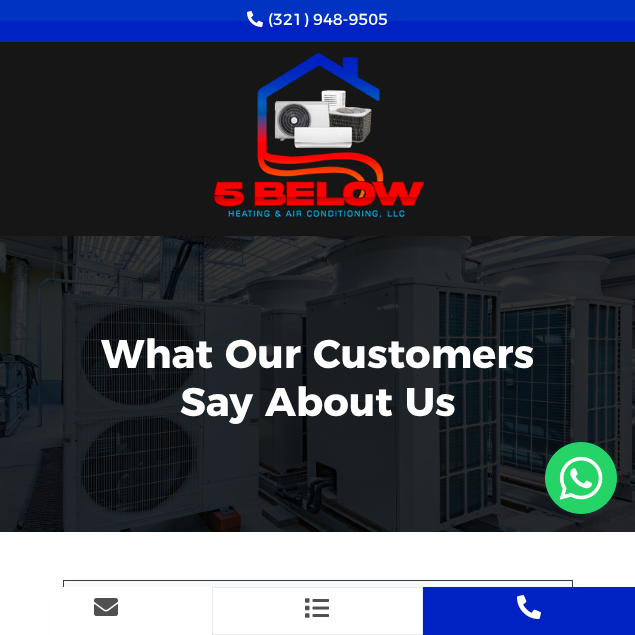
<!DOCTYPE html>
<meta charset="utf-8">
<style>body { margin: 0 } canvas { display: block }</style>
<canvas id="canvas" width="635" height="635"></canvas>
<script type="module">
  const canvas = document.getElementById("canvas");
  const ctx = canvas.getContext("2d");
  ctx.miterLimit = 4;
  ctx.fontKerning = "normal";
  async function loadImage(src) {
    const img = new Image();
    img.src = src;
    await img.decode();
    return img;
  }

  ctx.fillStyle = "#ffffff";
  ctx.fillRect(0, 0, 635, 635);
  ctx.fillStyle = "#0033c1";
  ctx.fillRect(0, 0, 635, 21);
  ctx.fillStyle = "#0022c2";
  ctx.fillRect(0, 21, 635, 21);
  ctx.drawImage(await loadImage("img1.png"), 247, 11, 16, 16);
  ctx.font = "16px Montserrat";
  ctx.fillStyle = "#ffffff";
  ctx.fillText("(321) 948-9505", 268, 25);
  ctx.fillStyle = "#161616";
  ctx.fillRect(0, 42, 635, 194);
  ctx.drawImage(await loadImage("img2.png"), 213, 53, 212, 165);
  ctx.drawImage(await loadImage("img3.png"), 0, 236, 635, 296);
  ctx.font = "bold 40px Montserrat";
  ctx.fillStyle = "#ffffff";
  ctx.fillText("What Our Customers", 101, 368);
  ctx.fillText("Say About Us", 180, 416);
  ctx.fillStyle = "rgba(60, 60, 60, 0.4)";
  ctx.filter = "blur(2px)";
  ctx.beginPath();
  ctx.roundRect(546, 443, 72, 72, 36);
  ctx.fill();
  ctx.filter = "none";
  ctx.fillStyle = "#00a884";
  ctx.beginPath();
  ctx.arc(581, 478, 36, 0, Math.PI * 2);
  ctx.fill();
  ctx.drawImage(await loadImage("img4.png"), 545, 442, 72, 72);
  ctx.fillStyle = "#686868";
  ctx.filter = "blur(8.5px)";
  ctx.beginPath();
  ctx.rect(69, 596, 498, 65);
  ctx.fill();
  ctx.filter = "none";
  ctx.fillStyle = "#f8f9fa";
  ctx.fillRect(64, 581, 508, 6);
  ctx.strokeStyle = "#343a40";
  ctx.strokeRect(63.5, 580.5, 509, 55);
  ctx.fillStyle = "#ffffff";
  ctx.fillRect(51, 587, 161, 48);
  ctx.drawImage(await loadImage("img5.png"), 94, 598, 24, 18);
  ctx.beginPath();
  ctx.rect(212.5, 587.5, 210, 47);
  ctx.fill();
  ctx.strokeStyle = "#e9ecef";
  ctx.stroke();
  ctx.drawImage(await loadImage("img6.png"), 305, 598, 24, 20);
  ctx.fillStyle = "#0022c2";
  ctx.fillRect(423, 587, 212, 48);
  ctx.drawImage(await loadImage("img7.png"), 517, 595, 24, 24);
</script>
